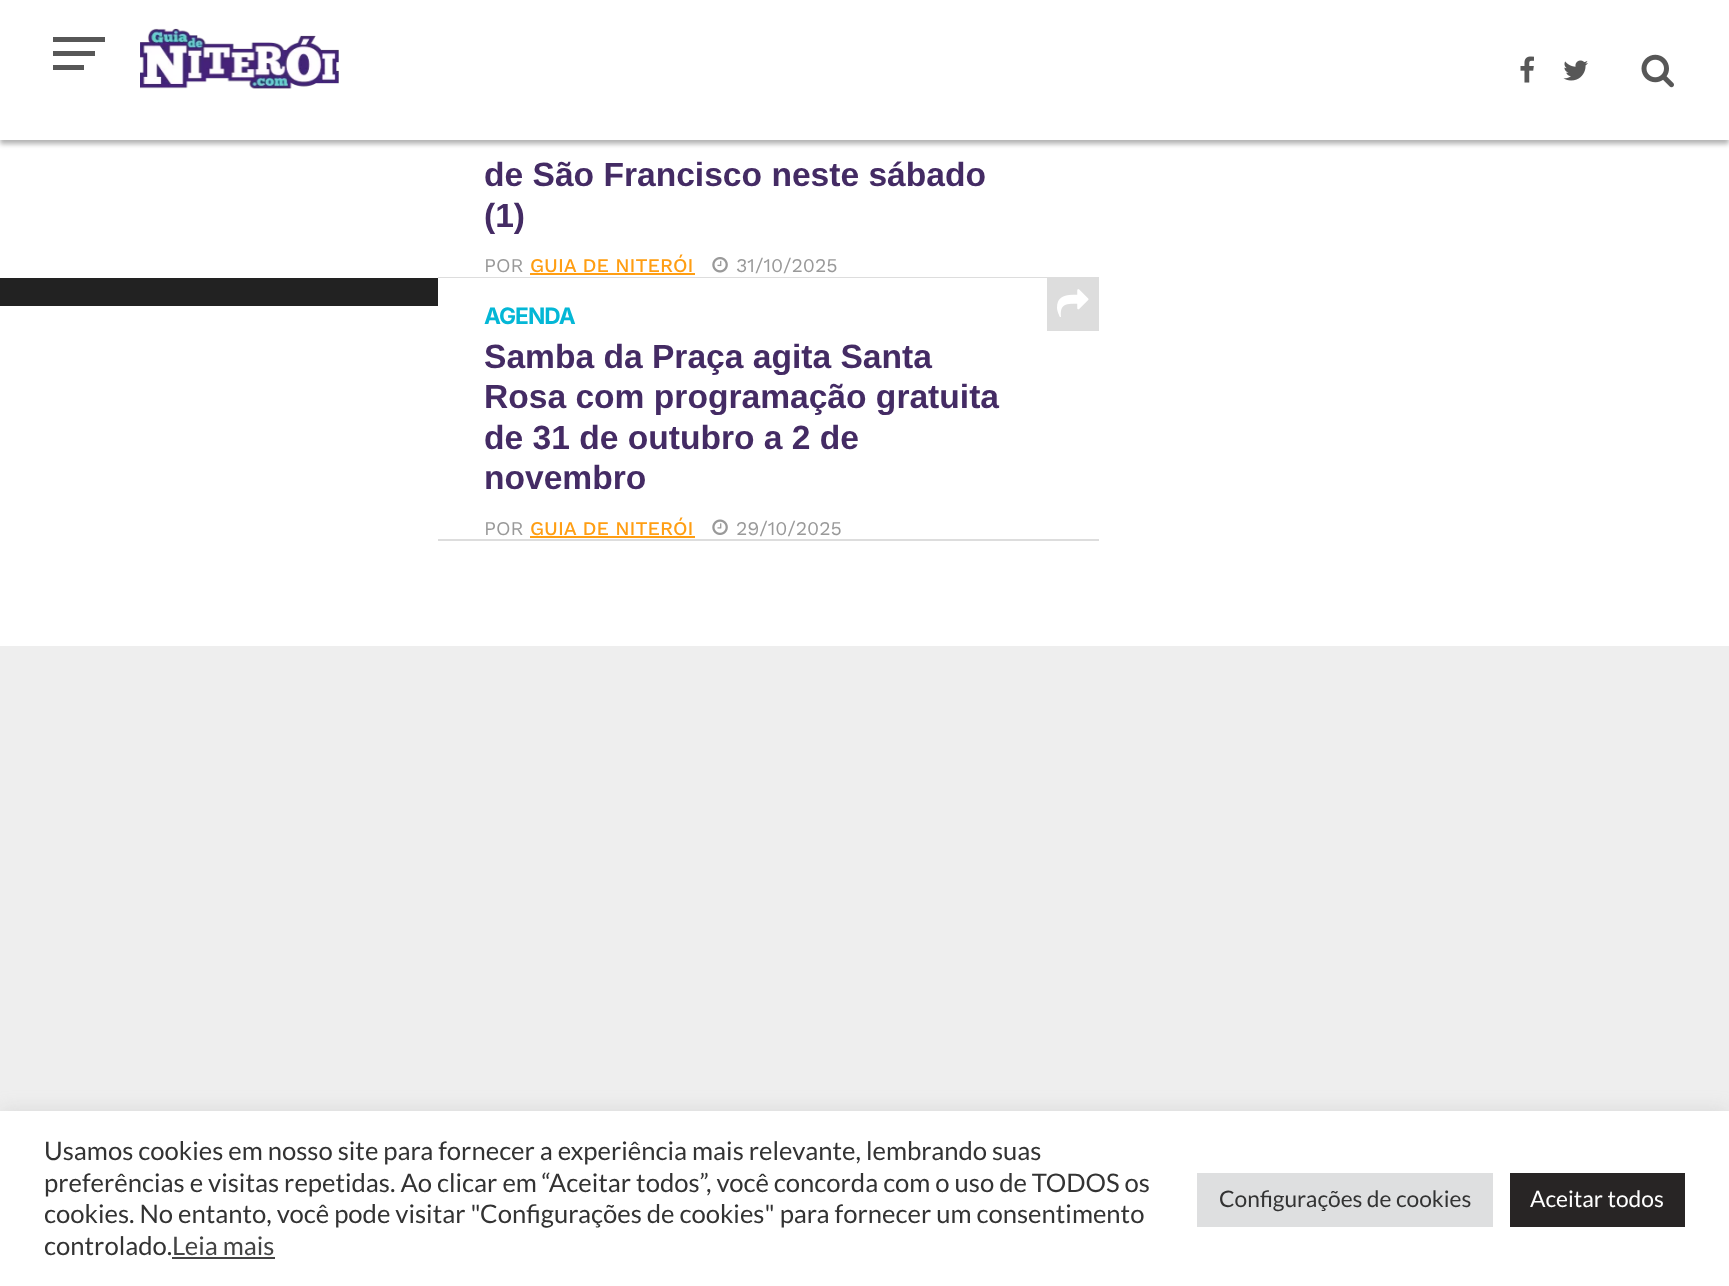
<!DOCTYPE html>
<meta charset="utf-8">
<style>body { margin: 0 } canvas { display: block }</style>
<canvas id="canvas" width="1729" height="1286"></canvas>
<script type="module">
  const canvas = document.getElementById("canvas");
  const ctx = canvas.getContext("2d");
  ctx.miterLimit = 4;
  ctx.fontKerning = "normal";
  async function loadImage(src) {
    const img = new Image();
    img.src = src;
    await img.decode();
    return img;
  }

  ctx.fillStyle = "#ffffff";
  ctx.fillRect(0, 0, 1729, 1286);
  ctx.fillStyle = "rgba(0, 0, 0, 0.3)";
  ctx.filter = "blur(2.5px)";
  ctx.beginPath();
  ctx.rect(0, 4, 1729, 140);
  ctx.fill();
  ctx.filter = "none";
  ctx.fillStyle = "#ffffff";
  ctx.fillRect(0, 0, 1729, 140);
  ctx.fillStyle = "#575757";
  ctx.fillRect(53, 37, 52, 5);
  ctx.fillRect(53, 51, 42, 5);
  ctx.fillRect(53, 65, 31, 5);
  ctx.drawImage(await loadImage("img1.png"), 140, 28, 199, 61);
  ctx.drawImage(await loadImage("img2.png"), 1520, 56, 14, 27);
  ctx.drawImage(await loadImage("img3.png"), 1563, 60, 25, 21);
  ctx.drawImage(await loadImage("img4.png"), 1641, 54, 33, 34);
  ctx.fillStyle = "#dddddd";
  ctx.fillRect(438, 277, 661, 1);
  ctx.font = "bold 33.6px Liberation Sans";
  ctx.fillStyle = "#442b64";
  ctx.fillText("de São Francisco neste sábado", 484, 186);
  ctx.fillText("(1)", 484, 227);
  ctx.font = "19.5px Work Sans";
  ctx.fillStyle = "#999999";
  ctx.fillText("POR", 484, 272);
  ctx.font = "500 19.5px Work Sans";
  ctx.fillStyle = "#ff9e13";
  ctx.fillText("GUIA DE NITERÓI", 530, 272);
  ctx.fillRect(530, 273, 165, 2);
  ctx.drawImage(await loadImage("img5.png"), 712, 257, 16, 16);
  ctx.font = "19.5px Work Sans";
  ctx.fillStyle = "#999999";
  ctx.fillText("31/10/2025", 736, 272);
  ctx.fillStyle = "#222222";
  ctx.fillRect(0, 278, 438, 28);
  ctx.fillStyle = "#dddddd";
  ctx.fillRect(438, 539, 661, 2);
  ctx.letterSpacing = "-1px";
  ctx.font = "bold 22.75px Inter";
  ctx.fillStyle = "#04b7d6";
  ctx.fillText("AGENDA", 484, 324);
  ctx.fillStyle = "#dddddd";
  ctx.fillRect(1047, 278, 52, 53);
  ctx.drawImage(await loadImage("img6.png"), 1057, 289, 32, 28);
  ctx.letterSpacing = "0px";
  ctx.font = "bold 33.6px Liberation Sans";
  ctx.fillStyle = "#442b64";
  ctx.fillText("Samba da Praça agita Santa", 484, 368);
  ctx.fillText("Rosa com programação gratuita", 484, 408);
  ctx.fillText("de 31 de outubro a 2 de", 484, 449);
  ctx.fillText("novembro", 484, 489);
  ctx.font = "19.5px Work Sans";
  ctx.fillStyle = "#999999";
  ctx.fillText("POR", 484, 535);
  ctx.font = "500 19.5px Work Sans";
  ctx.fillStyle = "#ff9e13";
  ctx.fillText("GUIA DE NITERÓI", 530, 535);
  ctx.fillRect(530, 536, 165, 2);
  ctx.drawImage(await loadImage("img7.png"), 712, 519, 16, 16);
  ctx.font = "19.5px Work Sans";
  ctx.fillStyle = "#999999";
  ctx.fillText("29/10/2025", 736, 535);
  ctx.fillStyle = "#eeeeee";
  ctx.fillRect(0, 646, 1729, 465);
  ctx.fillStyle = "rgba(172, 171, 171, 0.3)";
  ctx.filter = "blur(9px)";
  ctx.beginPath();
  ctx.rect(0, 1110, 1729, 175);
  ctx.fill();
  ctx.filter = "none";
  ctx.fillStyle = "#ffffff";
  ctx.fillRect(0, 1111, 1729, 175);
  ctx.font = "25.65px Lato";
  ctx.fillStyle = "#333333";
  ctx.fillText("Usamos cookies em nosso site para fornecer a experiência mais relevante, lembrando suas", 44, 1160);
  ctx.fillText("preferências e visitas repetidas. Ao clicar em “Aceitar todos”, você concorda com o uso de TODOS os", 44, 1192);
  ctx.fillText("cookies. No entanto, você pode visitar \"Configurações de cookies\" para fornecer um consentimento", 44, 1223);
  ctx.fillText("controlado.", 44, 1255);
  ctx.fillStyle = "#444444";
  ctx.fillText("Leia mais", 172, 1255);
  ctx.fillRect(172, 1257, 103, 2);
  ctx.fillStyle = "#dedfe0";
  ctx.fillRect(1197, 1173, 296, 54);
  ctx.font = "22.75px Lato";
  ctx.fillStyle = "#333333";
  ctx.fillText("Configurações de cookies", 1219, 1207);
  ctx.fillStyle = "#282525";
  ctx.fillRect(1510, 1173, 175, 54);
  ctx.fillStyle = "#ffffff";
  ctx.fillText("Aceitar todos", 1530, 1207);
</script>
